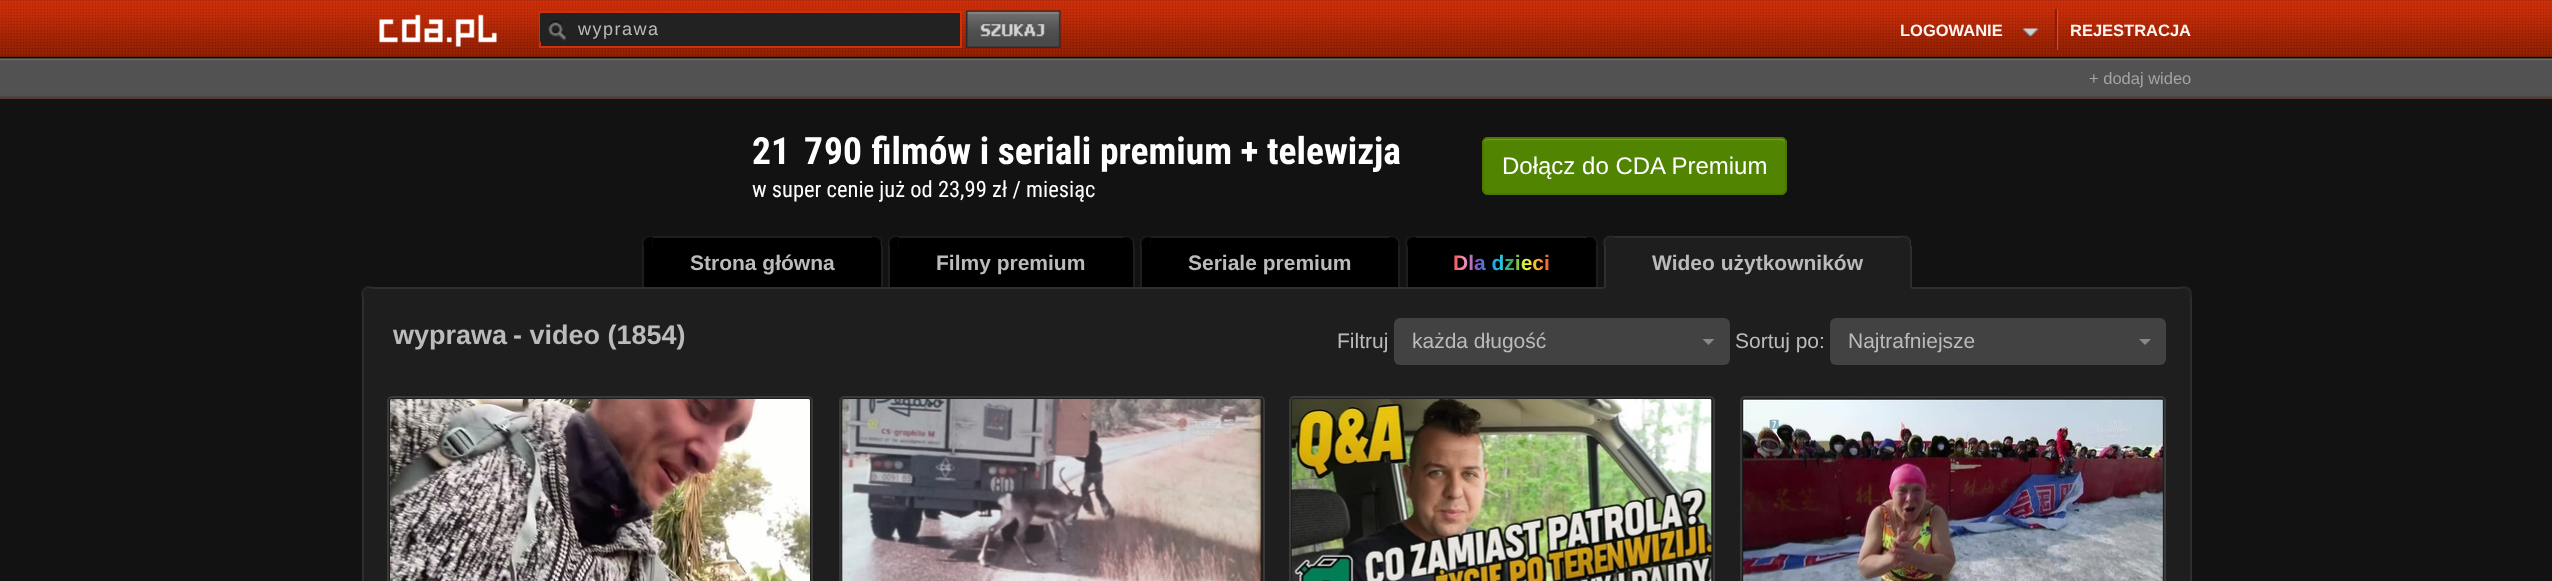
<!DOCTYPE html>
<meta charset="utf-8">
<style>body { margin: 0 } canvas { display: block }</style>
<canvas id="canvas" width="2552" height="581"></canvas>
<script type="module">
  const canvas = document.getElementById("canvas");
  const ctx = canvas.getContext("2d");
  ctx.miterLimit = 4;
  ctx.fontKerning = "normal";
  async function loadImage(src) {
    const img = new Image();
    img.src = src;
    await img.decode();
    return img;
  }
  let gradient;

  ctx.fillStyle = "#121212";
  ctx.fillRect(0, 0, 2552, 581);
  ctx.drawImage(await loadImage("img1.png"), 0, 0, 2552, 99);
  ctx.drawImage(await loadImage("img2.png"), 379, 14, 118, 33);
  ctx.fillStyle = "#222222";
  ctx.beginPath();
  ctx.rect(540, 12, 421, 35);
  ctx.fill();
  ctx.strokeStyle = "#cf320a";
  ctx.lineWidth = 2;
  ctx.stroke();
  ctx.drawImage(await loadImage("img3.png"), 540, 13, 26, 29);
  ctx.letterSpacing = "1.5px";
  ctx.font = "18px Liberation Sans";
  ctx.fillStyle = "#bbbbbb";
  ctx.fillText("wyprawa", 578, 35);
  ctx.drawImage(await loadImage("img4.png"), 966, 10, 95, 38);
  ctx.letterSpacing = "0px";
  ctx.font = "bold 16.5px Liberation Sans";
  ctx.fillStyle = "#fff4ef";
  ctx.fillText("LOGOWANIE", 1900, 36);
  ctx.drawImage(await loadImage("img5.png"), 2021, 28, 18, 10);
  ctx.fillStyle = "#df4928";
  ctx.fillRect(2057, 9, 1, 41);
  ctx.fillStyle = "#8c1b0c";
  ctx.fillRect(2055, 9, 2, 41);
  ctx.fillStyle = "#fff4ef";
  ctx.fillText("REJESTRACJA", 2070, 36);
  ctx.font = "16.5px Liberation Sans";
  ctx.fillStyle = "#a5a5a5";
  ctx.fillText("+ dodaj wideo", 2089, 84);
  ctx.font = "bold 37.5px Roboto Condensed";
  ctx.fillStyle = "#ffffff";
  ctx.fillText("2", 752, 164);
  ctx.fillText("1", 771, 164);
  ctx.fillText("7", 804, 164);
  ctx.fillText("9", 824, 164);
  ctx.fillText("0", 843, 164);
  ctx.save();
  ctx.beginPath();
  ctx.rect(872, 132, 532, 60);
  ctx.clip();
  ctx.fillText("filmów i seriali premium + telewizja", 871, 164);
  ctx.restore();
  ctx.font = "22.5px Roboto Condensed";
  ctx.fillText("w super cenie już od 23,99 zł / miesiąc", 752, 197);
  ctx.fillStyle = "#508401";
  ctx.beginPath();
  ctx.roundRect(1482, 137, 305, 58, 6);
  ctx.fill();
  ctx.fillStyle = "#739d34";
  ctx.beginPath();
  ctx.moveTo(1488, 140);
  ctx.lineTo(1780, 140);
  ctx.bezierCurveTo(1783, 140, 1785, 142, 1785, 144);
  ctx.lineTo(1785, 143);
  ctx.bezierCurveTo(1785, 140, 1783, 138, 1780, 138);
  ctx.lineTo(1489, 138);
  ctx.bezierCurveTo(1486, 138, 1484, 140, 1484, 143);
  ctx.lineTo(1484, 144);
  ctx.bezierCurveTo(1484, 142, 1486, 140, 1488, 140);
  ctx.closePath();
  ctx.fill();
  ctx.beginPath();
  ctx.roundRect(1483, 138, 303, 56, 5);
  ctx.strokeStyle = "#4e7600";
  ctx.stroke();
  ctx.font = "24px Liberation Sans";
  ctx.fillStyle = "#ffffff";
  ctx.fillText("Dołącz do CDA Premium", 1502, 174);
  ctx.drawImage(await loadImage("img6.png"), 642, 236, 11, 10);
  ctx.fillStyle = "#1e1e1e";
  ctx.fillRect(653, 236, 219, 2);
  ctx.fillStyle = "#000000";
  ctx.fillRect(653, 238, 219, 49);
  ctx.drawImage(await loadImage("img7.png"), 871, 236, 11, 10);
  ctx.fillRect(644, 246, 9, 41);
  ctx.fillStyle = "#1e1e1e";
  ctx.fillRect(642, 246, 2, 41);
  ctx.font = "bold 21px Liberation Sans";
  ctx.fillStyle = "#bbbbbb";
  ctx.fillText("Strona główna", 690, 270);
  ctx.fillStyle = "#000000";
  ctx.fillRect(872, 246, 9, 41);
  ctx.fillStyle = "#1e1e1e";
  ctx.fillRect(881, 246, 2, 41);
  ctx.drawImage(await loadImage("img6.png"), 888, 236, 11, 10);
  ctx.fillRect(899, 236, 225, 2);
  ctx.fillStyle = "#000000";
  ctx.fillRect(899, 238, 225, 49);
  ctx.drawImage(await loadImage("img8.png"), 1123, 236, 11, 10);
  ctx.fillRect(890, 246, 9, 41);
  ctx.fillStyle = "#1e1e1e";
  ctx.fillRect(888, 246, 2, 41);
  ctx.fillStyle = "#bbbbbb";
  ctx.fillText("Filmy premium", 936, 270);
  ctx.fillStyle = "#000000";
  ctx.fillRect(1124, 246, 9, 41);
  ctx.fillStyle = "#1e1e1e";
  ctx.fillRect(1133, 246, 2, 41);
  ctx.drawImage(await loadImage("img9.png"), 1140, 236, 11, 10);
  ctx.drawImage(await loadImage("img10.png"), 1389, 236, 11, 10);
  ctx.fillRect(1151, 236, 238, 2);
  ctx.fillStyle = "#000000";
  ctx.fillRect(1142, 246, 9, 41);
  ctx.fillStyle = "#1e1e1e";
  ctx.fillRect(1140, 246, 2, 41);
  ctx.fillStyle = "#000000";
  ctx.fillRect(1151, 238, 238, 49);
  ctx.fillStyle = "#bbbbbb";
  ctx.fillText("Seriale premium", 1188, 270);
  ctx.fillStyle = "#000000";
  ctx.fillRect(1389, 246, 9, 41);
  ctx.fillStyle = "#1e1e1e";
  ctx.fillRect(1398, 246, 2, 41);
  ctx.drawImage(await loadImage("img11.png"), 1405, 236, 11, 10);
  ctx.drawImage(await loadImage("img10.png"), 1587, 236, 11, 10);
  ctx.fillRect(1416, 236, 171, 2);
  ctx.fillStyle = "#000000";
  ctx.fillRect(1408, 246, 8, 41);
  ctx.fillStyle = "#1e1e1e";
  ctx.fillRect(1406, 246, 2, 41);
  ctx.fillStyle = "#000000";
  ctx.fillRect(1416, 238, 171, 49);
  gradient = ctx.createLinearGradient(1453, 263, 1550, 263);
  gradient.addColorStop(0, "#ef5350");
  gradient.addColorStop(0.12, "#f48fb1");
  gradient.addColorStop(0.25, "#7e57c2");
  gradient.addColorStop(0.38, "#2196f3");
  gradient.addColorStop(0.5, "#26c6da");
  gradient.addColorStop(0.62, "#43a047");
  gradient.addColorStop(0.75, "#eeff41");
  gradient.addColorStop(0.88, "#f9a825");
  gradient.addColorStop(1, "#ff5722");
  ctx.fillStyle = gradient;
  ctx.fillText("Dla dzieci", 1453, 270);
  ctx.fillStyle = "#000000";
  ctx.fillRect(1587, 246, 9, 41);
  ctx.fillStyle = "#1e1e1e";
  ctx.fillRect(1596, 246, 2, 41);
  ctx.drawImage(await loadImage("img12.png"), 1603, 235, 11, 11);
  ctx.fillStyle = "#2e2e2e";
  ctx.fillRect(1614, 236, 287, 2);
  ctx.fillRect(372, 287, 1809, 2);
  ctx.fillStyle = "#1e1e1e";
  ctx.fillRect(1614, 238, 287, 50);
  ctx.drawImage(await loadImage("img13.png"), 1900, 235, 11, 11);
  ctx.fillRect(1606, 246, 8, 42);
  ctx.fillStyle = "#2e2e2e";
  ctx.fillRect(1604, 246, 2, 42);
  ctx.fillStyle = "#bbbbbb";
  ctx.fillText("Wideo użytkowników", 1652, 270);
  ctx.fillStyle = "#1e1e1e";
  ctx.fillRect(1901, 246, 9, 42);
  ctx.fillStyle = "#2e2e2e";
  ctx.fillRect(1910, 246, 2, 42);
  ctx.fillStyle = "#1e1e1e";
  ctx.fillRect(1604, 288, 307, 1);
  ctx.drawImage(await loadImage("img14.png"), 361, 286, 11, 11);
  ctx.fillRect(372, 289, 1809, 8);
  ctx.drawImage(await loadImage("img15.png"), 2181, 286, 11, 11);
  ctx.fillRect(364, 297, 1826, 284);
  ctx.fillStyle = "#2e2e2e";
  ctx.fillRect(2190, 297, 2, 284);
  ctx.fillRect(362, 297, 2, 284);
  ctx.font = "bold 27px Liberation Sans";
  ctx.fillStyle = "#bbbbbb";
  ctx.fillText("wyprawa", 393, 344);
  ctx.fillText("- video (1854)", 513, 344);
  ctx.font = "21px Liberation Sans";
  ctx.fillText("Filtruj", 1337, 348);
  ctx.fillStyle = "#424242";
  ctx.beginPath();
  ctx.roundRect(1394, 318, 336, 47, 6);
  ctx.fill();
  ctx.fillStyle = "#bbbbbb";
  ctx.fillText("każda długość", 1412, 348);
  ctx.fillStyle = "#888888";
  ctx.beginPath();
  ctx.moveTo(1702.5, 339);
  ctx.lineTo(1714.5, 339);
  ctx.lineTo(1708.5, 345);
  ctx.closePath();
  ctx.fill();
  ctx.fillStyle = "#bbbbbb";
  ctx.fillText("Sortuj po:", 1735, 348);
  ctx.fillStyle = "#424242";
  ctx.beginPath();
  ctx.roundRect(1830, 318, 336, 47, 6);
  ctx.fill();
  ctx.fillStyle = "#bbbbbb";
  ctx.fillText("Najtrafniejsze", 1848, 348);
  ctx.fillStyle = "#888888";
  ctx.beginPath();
  ctx.moveTo(2139, 339);
  ctx.lineTo(2151, 339);
  ctx.lineTo(2145, 345);
  ctx.closePath();
  ctx.fill();
  ctx.beginPath();
  ctx.roundRect(388, 397, 424, 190, 4);
  ctx.strokeStyle = "#393939";
  ctx.stroke();
  ctx.drawImage(await loadImage("img16.png"), 390, 399, 420, 182);
  ctx.beginPath();
  ctx.roundRect(840, 397, 424, 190, 4);
  ctx.stroke();
  ctx.drawImage(await loadImage("img17.png"), 841, 399, 421, 182);
  ctx.beginPath();
  ctx.roundRect(1290, 397, 424, 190, 4);
  ctx.stroke();
  ctx.drawImage(await loadImage("img18.png"), 1291, 399, 421, 182);
  ctx.beginPath();
  ctx.roundRect(1741, 397, 424, 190, 4);
  ctx.stroke();
  ctx.drawImage(await loadImage("img19.png"), 1743, 399, 420, 182);
</script>
